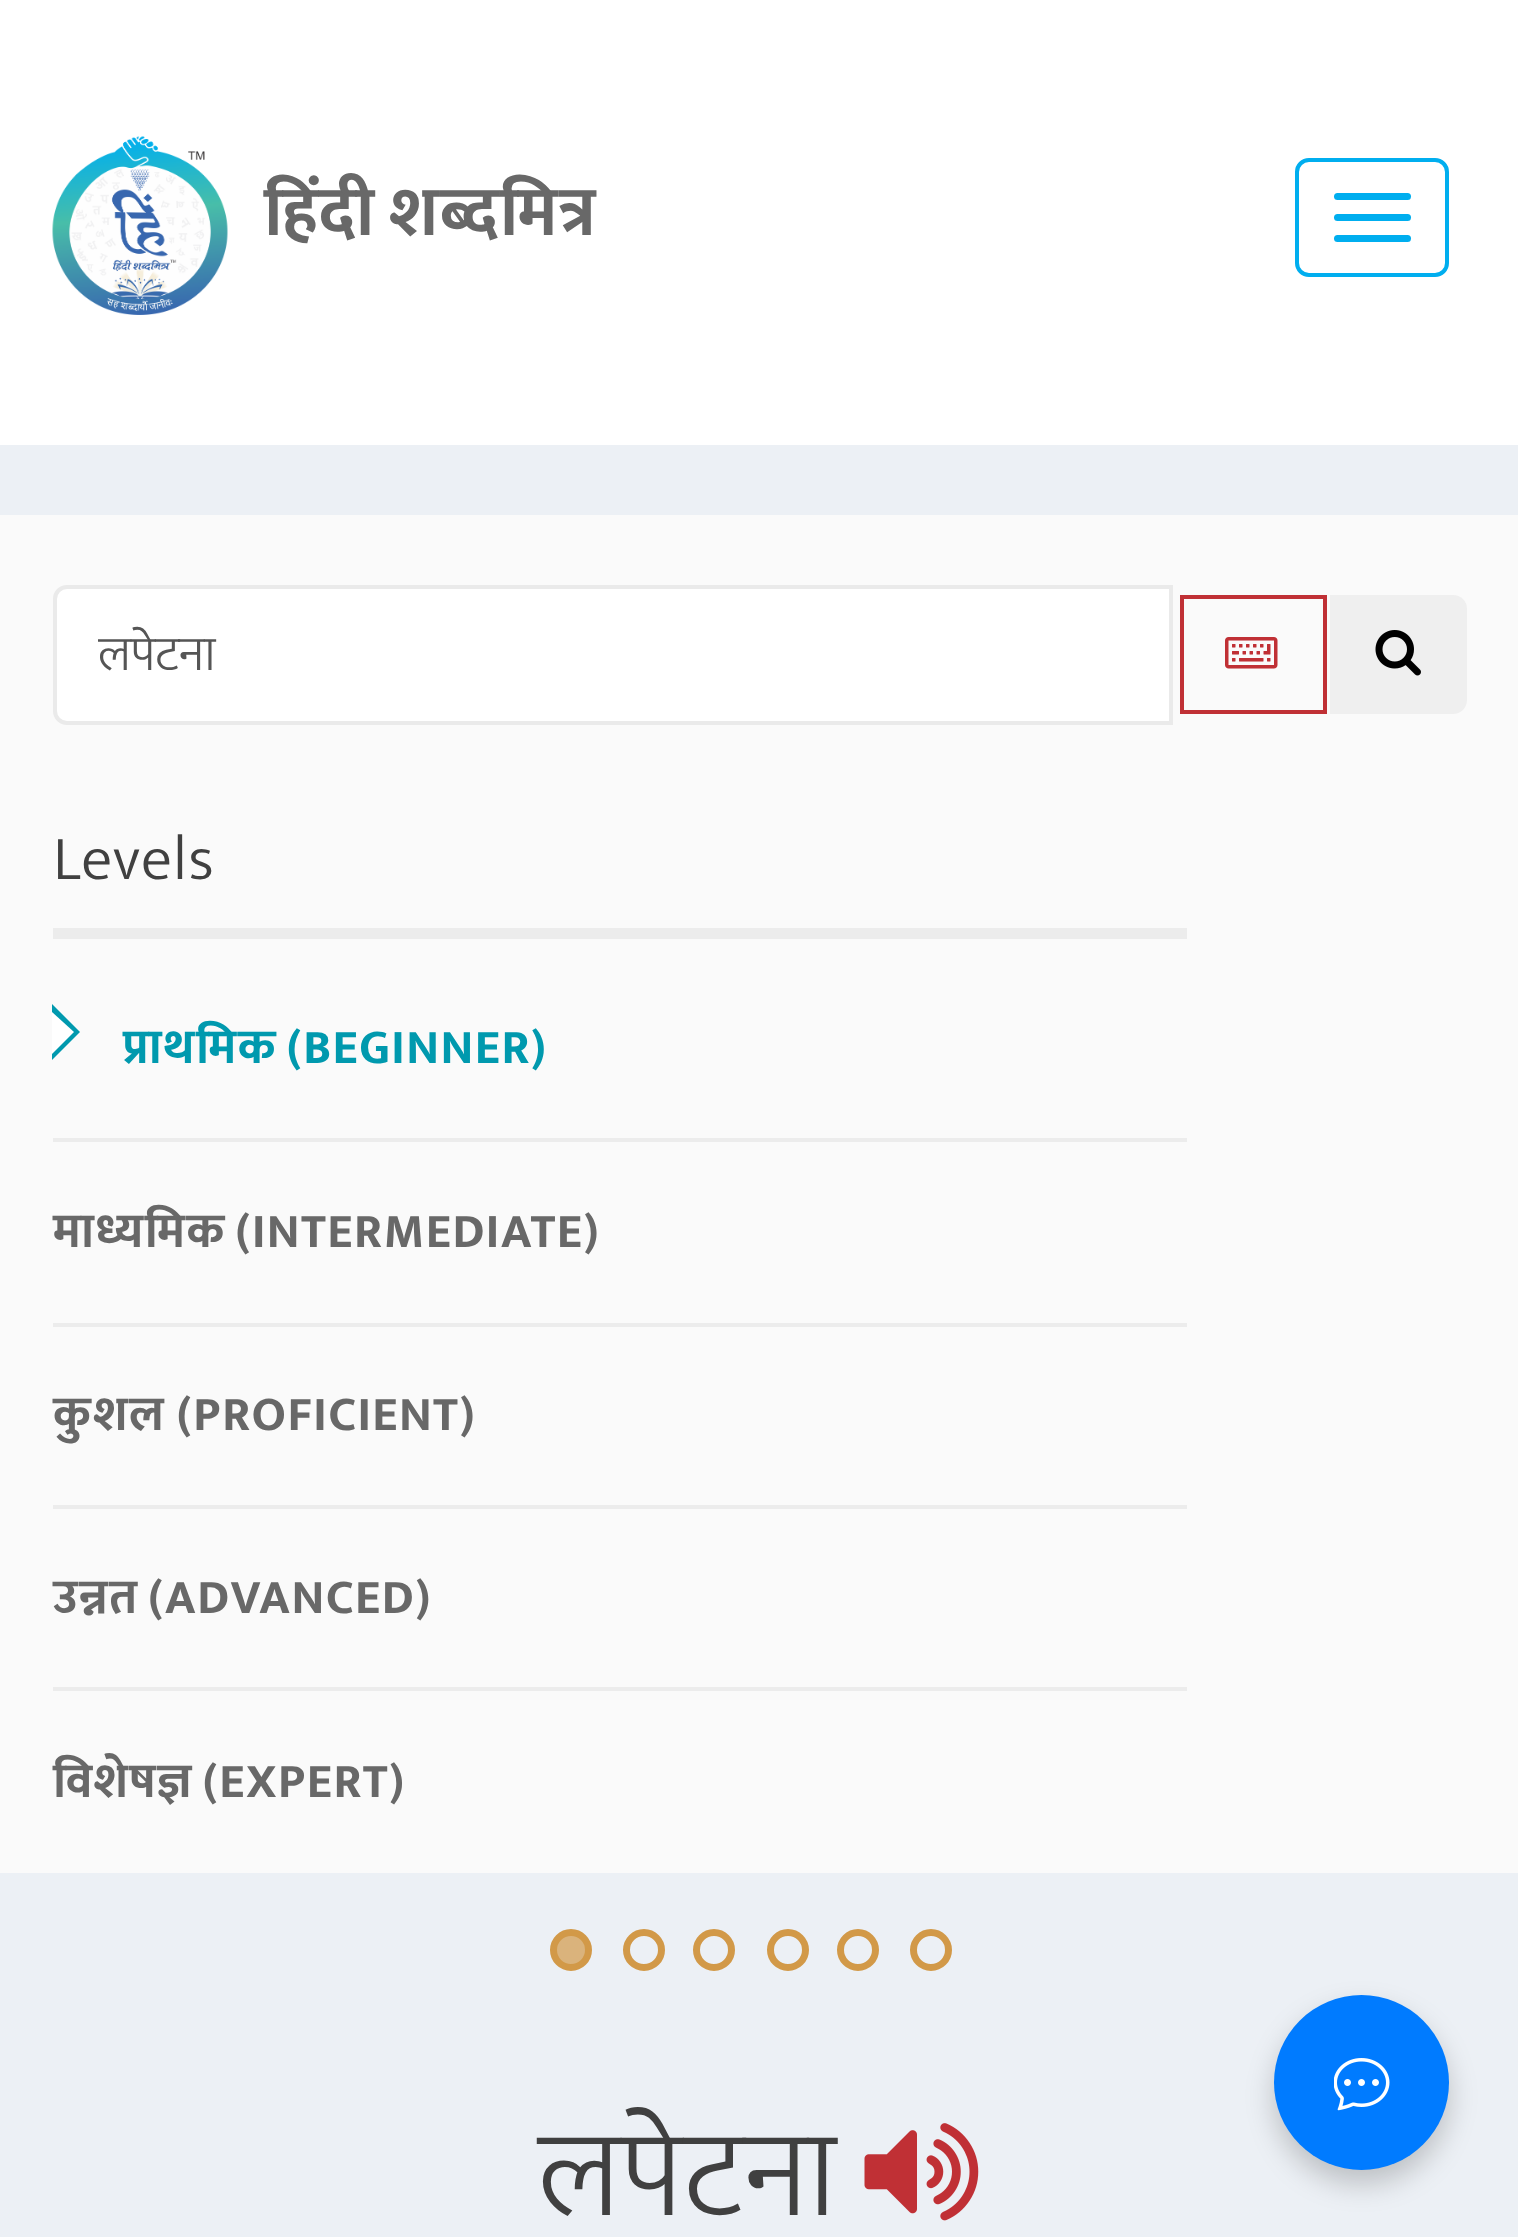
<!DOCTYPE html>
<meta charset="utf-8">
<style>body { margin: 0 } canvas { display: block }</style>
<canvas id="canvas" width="1518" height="2237"></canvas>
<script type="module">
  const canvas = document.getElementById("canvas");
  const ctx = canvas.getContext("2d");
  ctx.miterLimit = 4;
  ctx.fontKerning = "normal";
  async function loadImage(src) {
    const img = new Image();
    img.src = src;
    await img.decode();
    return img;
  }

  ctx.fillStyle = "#ffffff";
  ctx.fillRect(0, 0, 1518, 2237);
  ctx.drawImage(await loadImage("img1.png"), 52, 136, 176, 179);
  ctx.letterSpacing = "1.4px";
  ctx.wordSpacing = "-4px";
  ctx.font = "bold 70px Ek Mukta";
  ctx.fillStyle = "#686868";
  ctx.fillText("हिंदी शब्दमित्र", 264, 235);
  ctx.beginPath();
  ctx.roundRect(1297, 160, 150, 115, 12);
  ctx.strokeStyle = "#00aeef";
  ctx.lineWidth = 4;
  ctx.stroke();
  ctx.fillStyle = "#00aeef";
  ctx.beginPath();
  ctx.roundRect(1334, 193, 77, 7, 3.5);
  ctx.fill();
  ctx.beginPath();
  ctx.roundRect(1334, 214, 77, 7, 3.5);
  ctx.fill();
  ctx.beginPath();
  ctx.roundRect(1334, 235, 77, 7, 3.5);
  ctx.fill();
  ctx.fillStyle = "#ecf0f5";
  ctx.fillRect(0, 445, 1518, 1792);
  ctx.fillStyle = "#fafafa";
  ctx.fillRect(0, 515, 1518, 1358);
  ctx.fillStyle = "#ffffff";
  ctx.beginPath();
  ctx.roundRect(55, 587, 1116, 136, [12, 0, 0, 12]);
  ctx.fill();
  ctx.strokeStyle = "#eaeaea";
  ctx.stroke();
  ctx.save();
  ctx.beginPath();
  ctx.rect(98, 616, 1029, 81);
  ctx.clip();
  ctx.letterSpacing = "0px";
  ctx.wordSpacing = "0px";
  ctx.font = "300 49px Ek Mukta";
  ctx.fillStyle = "#555555";
  ctx.fillText("लपेटना", 98, 670);
  ctx.restore();
  ctx.strokeStyle = "#c03035";
  ctx.strokeRect(1182, 597, 143, 115);
  ctx.drawImage(await loadImage("img2.png"), 1225, 637, 53, 32);
  ctx.fillStyle = "#efefef";
  ctx.beginPath();
  ctx.roundRect(1330, 595, 137, 119, [0, 14, 14, 0]);
  ctx.fill();
  ctx.drawImage(await loadImage("img3.png"), 1375, 630, 46, 46);
  ctx.fillStyle = "#ececec";
  ctx.fillRect(53, 928, 1134, 11);
  ctx.wordSpacing = "0px";
  ctx.font = "300 63px Ek Mukta";
  ctx.fillStyle = "#404040";
  ctx.fillText("Levels", 53, 879);
  ctx.fillStyle = "#ececec";
  ctx.fillRect(53, 1138, 1134, 4);
  ctx.fillStyle = "#0099ae";
  ctx.beginPath();
  ctx.moveTo(52, 1060);
  ctx.lineTo(52, 1004);
  ctx.lineTo(80, 1032);
  ctx.closePath();
  ctx.fill();
  ctx.fillStyle = "#ffffff";
  ctx.beginPath();
  ctx.moveTo(52, 1054);
  ctx.lineTo(52, 1012);
  ctx.lineTo(74, 1032);
  ctx.closePath();
  ctx.fill();
  ctx.wordSpacing = "-3px";
  ctx.font = "bold 49px Ek Mukta";
  ctx.fillStyle = "#0099ae";
  ctx.fillText("प्राथमिक (BEGINNER)", 123, 1063);
  ctx.fillStyle = "#ececec";
  ctx.fillRect(53, 1323, 1134, 4);
  ctx.fillStyle = "#686868";
  ctx.fillText("माध्यमिक (INTERMEDIATE)", 53, 1247);
  ctx.fillStyle = "#ececec";
  ctx.fillRect(53, 1505, 1134, 4);
  ctx.wordSpacing = "-1px";
  ctx.fillStyle = "#686868";
  ctx.fillText("कुशल (PROFICIENT)", 53, 1430);
  ctx.fillStyle = "#ececec";
  ctx.fillRect(53, 1687, 1134, 4);
  ctx.wordSpacing = "-3px";
  ctx.fillStyle = "#686868";
  ctx.fillText("उन्नत (ADVANCED)", 53, 1613);
  ctx.fillText("विशेषज्ञ (EXPERT)", 53, 1797);
  ctx.fillStyle = "#dab37c";
  ctx.beginPath();
  ctx.arc(571, 1950, 17.5, 0, Math.PI * 2);
  ctx.fill();
  ctx.strokeStyle = "#d29948";
  ctx.lineWidth = 7;
  ctx.stroke();
  ctx.beginPath();
  ctx.arc(644, 1950, 17.5, 0, Math.PI * 2);
  ctx.stroke();
  ctx.beginPath();
  ctx.arc(714, 1950, 17.5, 0, Math.PI * 2);
  ctx.stroke();
  ctx.beginPath();
  ctx.arc(788, 1950, 17.5, 0, Math.PI * 2);
  ctx.stroke();
  ctx.beginPath();
  ctx.arc(858, 1950, 17.5, 0, Math.PI * 2);
  ctx.stroke();
  ctx.beginPath();
  ctx.arc(931, 1950, 17.5, 0, Math.PI * 2);
  ctx.stroke();
  ctx.wordSpacing = "0px";
  ctx.font = "300 122.5px Ek Mukta";
  ctx.fillStyle = "#404040";
  ctx.fillText("लपेटना", 538, 2215);
  ctx.drawImage(await loadImage("img4.png"), 864, 2123, 115, 98);
  ctx.fillStyle = "rgba(0, 0, 0, 0.2)";
  ctx.filter = "blur(14px)";
  ctx.beginPath();
  ctx.roundRect(1274, 2009, 175, 175, 87.5);
  ctx.fill();
  ctx.filter = "none";
  ctx.fillStyle = "#007bff";
  ctx.beginPath();
  ctx.arc(1361.5, 2082.5, 87.5, 0, Math.PI * 2);
  ctx.fill();
  ctx.drawImage(await loadImage("img5.png"), 1334, 2058, 56, 53);
</script>
